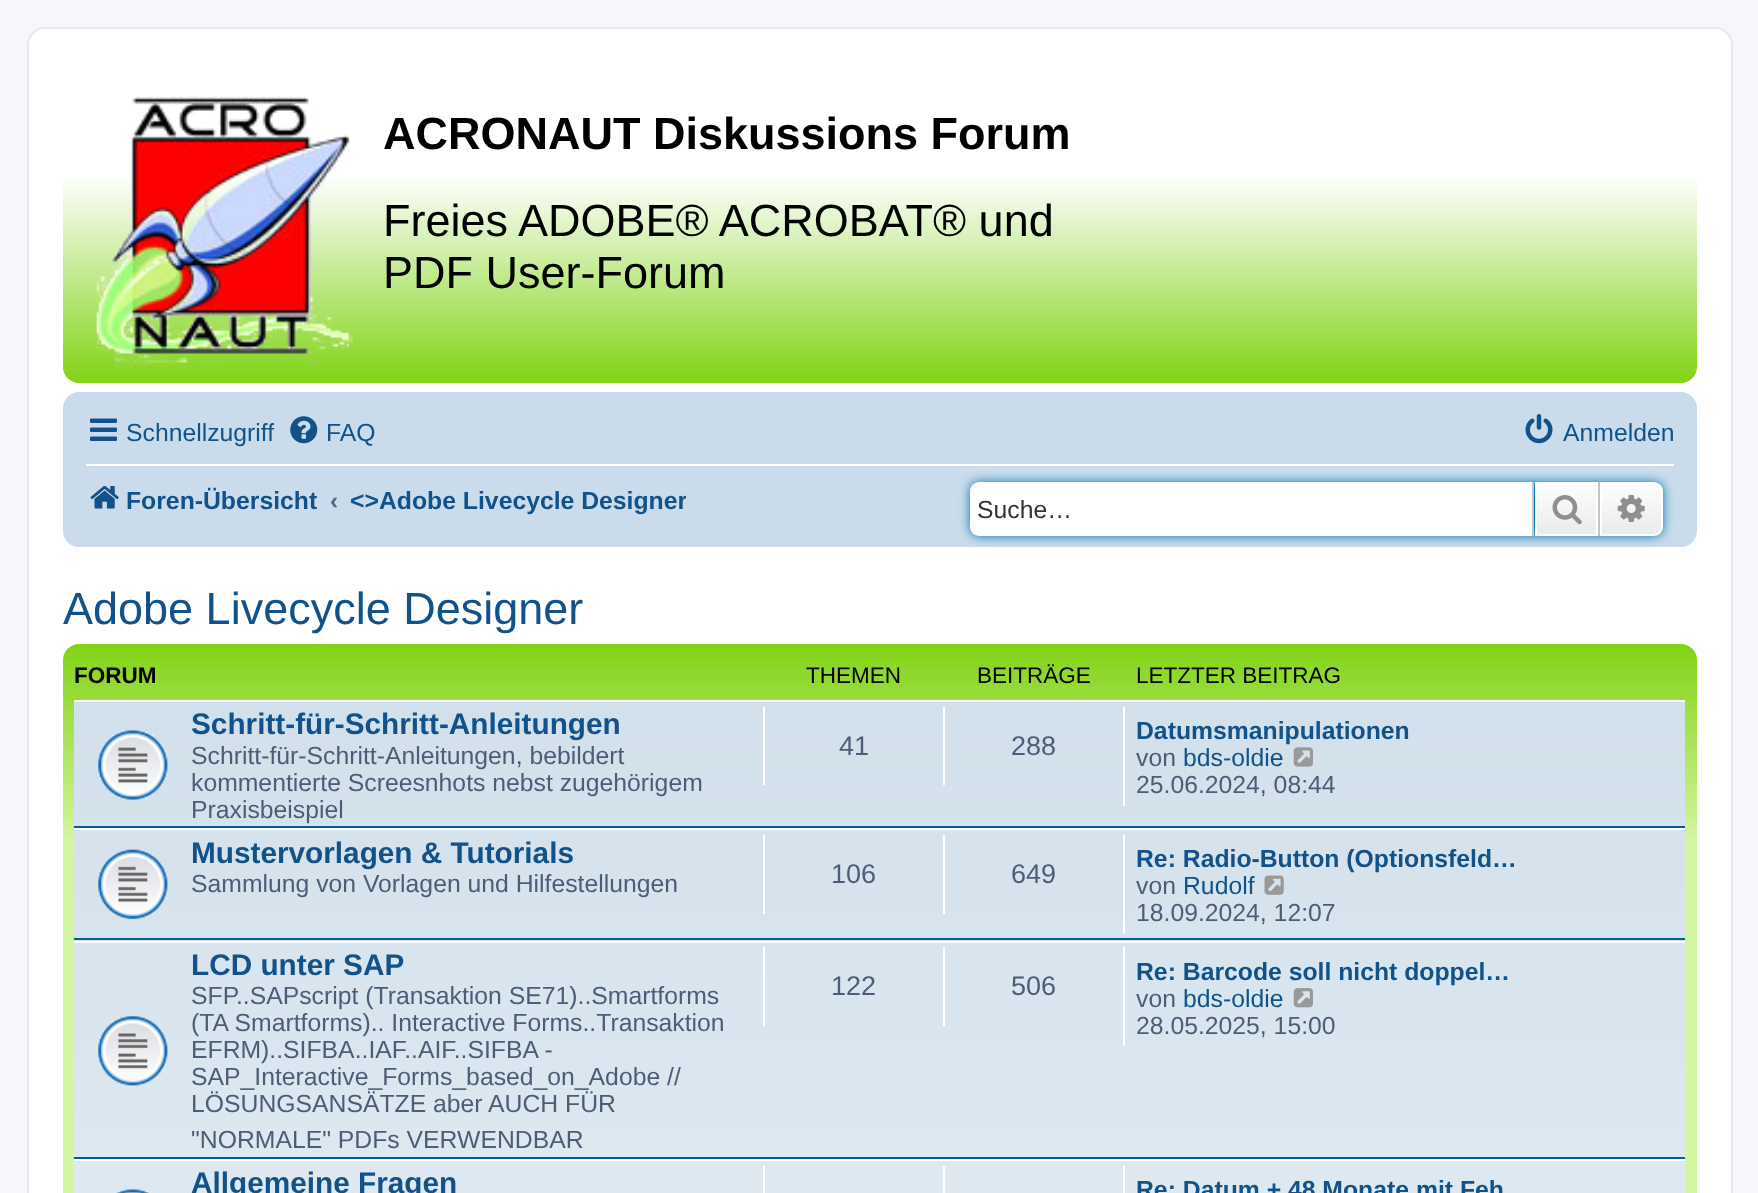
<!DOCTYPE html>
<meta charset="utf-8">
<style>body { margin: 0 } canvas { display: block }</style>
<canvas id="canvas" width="1758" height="1193"></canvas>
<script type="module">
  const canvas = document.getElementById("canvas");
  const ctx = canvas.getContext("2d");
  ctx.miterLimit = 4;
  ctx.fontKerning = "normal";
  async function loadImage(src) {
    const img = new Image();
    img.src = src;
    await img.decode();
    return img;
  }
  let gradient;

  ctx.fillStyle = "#f5f7fa";
  ctx.fillRect(0, 0, 1758, 1193);
  ctx.fillStyle = "#ffffff";
  ctx.beginPath();
  ctx.roundRect(28, 28, 1704, 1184, 17);
  ctx.fill();
  ctx.strokeStyle = "#e6e9ed";
  ctx.lineWidth = 2;
  ctx.stroke();
  gradient = ctx.createLinearGradient(880, 63, 880, 383);
  gradient.addColorStop(0, "#ffffff");
  gradient.addColorStop(0.35, "#ffffff");
  gradient.addColorStop(1, "#81d316");
  ctx.fillStyle = gradient;
  ctx.beginPath();
  ctx.roundRect(63, 63, 1634, 320, 16);
  ctx.fill();
  ctx.drawImage(await loadImage("img1.png"), 96, 96, 258, 271);
  ctx.font = "bold 45px Liberation Sans";
  ctx.fillStyle = "#000000";
  ctx.fillText("ACRONAUT Diskussions Forum", 383, 149);
  ctx.font = "45px Liberation Sans";
  ctx.fillText("Freies ADOBE® ACROBAT® und", 383, 236);
  ctx.fillText("PDF User-Forum", 383, 288);
  ctx.fillStyle = "#cadceb";
  ctx.beginPath();
  ctx.roundRect(63, 392, 1634, 155, 16);
  ctx.fill();
  ctx.drawImage(await loadImage("img2.png"), 90, 418, 27, 23);
  ctx.font = "24.75px Liberation Sans";
  ctx.fillStyle = "#105289";
  ctx.fillText("Schnellzugriff", 126, 441);
  ctx.drawImage(await loadImage("img3.png"), 290, 416, 28, 28);
  ctx.fillText("FAQ", 326, 441);
  ctx.drawImage(await loadImage("img4.png"), 1525, 414, 28, 30);
  ctx.fillText("Anmelden", 1563, 441);
  ctx.fillStyle = "#ffffff";
  ctx.fillRect(86, 464, 1588, 2);
  ctx.drawImage(await loadImage("img5.png"), 90, 486, 29, 23);
  ctx.font = "bold 24.75px Liberation Sans";
  ctx.fillStyle = "#105289";
  ctx.fillText("Foren-Übersicht", 126, 509);
  ctx.fillStyle = "#536482";
  ctx.fillText("‹", 330, 509);
  ctx.fillStyle = "#105289";
  ctx.fillText("<>", 350, 509);
  ctx.save();
  ctx.beginPath();
  ctx.rect(351, 473, 335, 54);
  ctx.clip();
  ctx.fillText("Adobe Livecycle Designer", 379, 509);
  ctx.restore();
  ctx.fillStyle = "#0075b0";
  ctx.filter = "blur(5.5px)";
  ctx.beginPath();
  ctx.roundRect(970, 482, 693, 54, 9);
  ctx.fill();
  ctx.filter = "none";
  ctx.fillStyle = "#ffffff";
  ctx.beginPath();
  ctx.roundRect(970, 482, 562, 54, [9, 0, 0, 9]);
  ctx.fill();
  ctx.font = "24.75px Liberation Sans";
  ctx.fillStyle = "#333333";
  ctx.fillText("Suche…", 977, 518);
  gradient = ctx.createLinearGradient(1566, 482, 1566, 536);
  gradient.addColorStop(0, "#ffffff");
  gradient.addColorStop(1, "#e9e9e9");
  ctx.fillStyle = gradient;
  ctx.fillRect(1537, 484, 59, 50);
  ctx.strokeStyle = "#ffffff";
  ctx.strokeRect(1536, 483, 61, 52);
  ctx.fillStyle = "#c7c3bf";
  ctx.fillRect(1598, 482, 2, 54);
  ctx.fillRect(1532, 482, 2, 54);
  ctx.drawImage(await loadImage("img6.png"), 1552, 495, 30, 30);
  gradient = ctx.createLinearGradient(1631, 482, 1631, 536);
  gradient.addColorStop(0, "#ffffff");
  gradient.addColorStop(1, "#e9e9e9");
  ctx.fillStyle = gradient;
  ctx.beginPath();
  ctx.roundRect(1601, 483, 61, 52, [0, 8, 8, 0]);
  ctx.fill();
  ctx.stroke();
  ctx.drawImage(await loadImage("img7.png"), 1617, 495, 28, 27);
  ctx.font = "45px Liberation Sans";
  ctx.fillStyle = "#105289";
  ctx.fillText("Adobe Livecycle Designer", 63, 624);
  gradient = ctx.createLinearGradient(880, 643, 880, 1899);
  gradient.addColorStop(0, "#eafec7");
  gradient.addColorStop(0, "#81d316");
  gradient.addColorStop(0.16, "#d5f6a1");
  gradient.addColorStop(1, "#d5f6a1");
  ctx.fillStyle = gradient;
  ctx.beginPath();
  ctx.roundRect(63, 644, 1634, 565, 16);
  ctx.fill();
  ctx.font = "bold 22.5px Liberation Sans";
  ctx.fillStyle = "#000000";
  ctx.fillText("FORUM", 74, 683);
  ctx.font = "22.5px Liberation Sans";
  ctx.fillText("THEMEN", 806, 683);
  ctx.fillText("BEITRÄGE", 977, 683);
  ctx.fillText("LETZTER BEITRAG", 1136, 683);
  gradient = ctx.createLinearGradient(880, 700, 880, 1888);
  gradient.addColorStop(0, "#d2e0eb");
  gradient.addColorStop(1, "#eef5f9");
  ctx.fillStyle = gradient;
  ctx.fillRect(74, 702, 1611, 491);
  ctx.fillStyle = "#ffffff";
  ctx.fillRect(74, 700, 1611, 2);
  ctx.fillStyle = "#00608f";
  ctx.fillRect(74, 826, 1611, 2);
  ctx.drawImage(await loadImage("img8.png"), 98, 730, 70, 70);
  ctx.font = "bold 29.75px Liberation Sans";
  ctx.fillStyle = "#105289";
  ctx.fillText("Schritt-für-Schritt-Anleitungen", 191, 734);
  ctx.font = "24.75px Liberation Sans";
  ctx.fillStyle = "#4c5d77";
  ctx.fillText("Schritt-für-Schritt-Anleitungen, bebildert", 191, 764);
  ctx.fillText("kommentierte Screesnhots nebst zugehörigem", 191, 791);
  ctx.fillText("Praxisbeispiel", 191, 818);
  ctx.fillStyle = "#ffffff";
  ctx.fillRect(763, 707, 2, 78);
  ctx.font = "27px Liberation Sans";
  ctx.fillStyle = "#4c5d77";
  ctx.fillText("41", 839, 755);
  ctx.fillStyle = "#ffffff";
  ctx.fillRect(943, 707, 2, 78);
  ctx.fillStyle = "#4c5d77";
  ctx.fillText("288", 1011, 755);
  ctx.fillStyle = "#ffffff";
  ctx.fillRect(1123, 707, 2, 99);
  ctx.font = "bold 24.75px Liberation Sans";
  ctx.fillStyle = "#105289";
  ctx.fillText("Datumsmanipulationen", 1136, 739);
  ctx.font = "24.75px Liberation Sans";
  ctx.fillStyle = "#4c5d77";
  ctx.fillText("von", 1136, 766);
  ctx.fillStyle = "#105289";
  ctx.fillText("bds-oldie", 1183, 766);
  ctx.drawImage(await loadImage("img9.png"), 1293, 747, 20, 20);
  ctx.fillStyle = "#4c5d77";
  ctx.fillText("25.06.2024, 08:44", 1136, 793);
  ctx.fillStyle = "#ffffff";
  ctx.fillRect(74, 828, 1611, 2);
  ctx.fillStyle = "#00608f";
  ctx.fillRect(74, 938, 1611, 2);
  ctx.drawImage(await loadImage("img10.png"), 98, 849, 70, 71);
  ctx.font = "bold 29.75px Liberation Sans";
  ctx.fillStyle = "#105289";
  ctx.fillText("Mustervorlagen & Tutorials", 191, 863);
  ctx.font = "24.75px Liberation Sans";
  ctx.fillStyle = "#4c5d77";
  ctx.fillText("Sammlung von Vorlagen und Hilfestellungen", 191, 892);
  ctx.fillStyle = "#ffffff";
  ctx.fillRect(763, 835, 2, 79);
  ctx.font = "27px Liberation Sans";
  ctx.fillStyle = "#4c5d77";
  ctx.fillText("106", 831, 883);
  ctx.fillStyle = "#ffffff";
  ctx.fillRect(943, 835, 2, 79);
  ctx.fillStyle = "#4c5d77";
  ctx.fillText("649", 1011, 883);
  ctx.fillStyle = "#ffffff";
  ctx.fillRect(1123, 835, 2, 99);
  ctx.font = "bold 24.75px Liberation Sans";
  ctx.fillStyle = "#105289";
  ctx.fillText("Re: Radio-Button (Optionsfeld…", 1136, 867);
  ctx.font = "24.75px Liberation Sans";
  ctx.fillStyle = "#4c5d77";
  ctx.fillText("von", 1136, 894);
  ctx.fillStyle = "#105289";
  ctx.fillText("Rudolf", 1183, 894);
  ctx.drawImage(await loadImage("img11.png"), 1264, 875, 20, 20);
  ctx.fillStyle = "#4c5d77";
  ctx.fillText("18.09.2024, 12:07", 1136, 921);
  ctx.fillStyle = "#ffffff";
  ctx.fillRect(74, 941, 1611, 2);
  ctx.fillStyle = "#00608f";
  ctx.fillRect(74, 1157, 1611, 2);
  ctx.drawImage(await loadImage("img12.png"), 98, 1016, 70, 70);
  ctx.font = "bold 29.75px Liberation Sans";
  ctx.fillStyle = "#105289";
  ctx.fillText("LCD unter SAP", 191, 975);
  ctx.font = "24.75px Liberation Sans";
  ctx.fillStyle = "#4c5d77";
  ctx.fillText("SFP..SAPscript (Transaktion SE71)..Smartforms", 191, 1004);
  ctx.fillText("(TA Smartforms).. Interactive Forms..Transaktion", 191, 1031);
  ctx.fillText("EFRM)..SIFBA..IAF..AIF..SIFBA -", 191, 1058);
  ctx.fillText("SAP_Interactive_Forms_based_on_Adobe //", 191, 1085);
  ctx.fillText("LÖSUNGSANSÄTZE aber AUCH FÜR", 191, 1112);
  ctx.fillText("\"NORMALE\" PDFs VERWENDBAR", 191, 1148);
  ctx.fillStyle = "#ffffff";
  ctx.fillRect(763, 947, 2, 79);
  ctx.font = "27px Liberation Sans";
  ctx.fillStyle = "#4c5d77";
  ctx.fillText("122", 831, 995);
  ctx.fillStyle = "#ffffff";
  ctx.fillRect(943, 947, 2, 79);
  ctx.fillStyle = "#4c5d77";
  ctx.fillText("506", 1011, 995);
  ctx.fillStyle = "#ffffff";
  ctx.fillRect(1123, 947, 2, 99);
  ctx.font = "bold 24.75px Liberation Sans";
  ctx.fillStyle = "#105289";
  ctx.fillText("Re: Barcode soll nicht doppel…", 1136, 980);
  ctx.font = "24.75px Liberation Sans";
  ctx.fillStyle = "#4c5d77";
  ctx.fillText("von", 1136, 1007);
  ctx.fillStyle = "#105289";
  ctx.fillText("bds-oldie", 1183, 1007);
  ctx.drawImage(await loadImage("img13.png"), 1293, 988, 20, 20);
  ctx.fillStyle = "#4c5d77";
  ctx.fillText("28.05.2025, 15:00", 1136, 1034);
  ctx.fillStyle = "#ffffff";
  ctx.fillRect(74, 1159, 1611, 2);
  ctx.drawImage(await loadImage("img14.png"), 116, 1189, 33, 4);
  ctx.font = "bold 29.75px Liberation Sans";
  ctx.fillStyle = "#105289";
  ctx.fillText("Allgemeine Fragen", 191, 1193);
  ctx.fillStyle = "#ffffff";
  ctx.fillRect(763, 1166, 2, 27);
  ctx.fillRect(943, 1166, 2, 27);
  ctx.fillRect(1123, 1166, 2, 27);
  ctx.font = "bold 24.75px Liberation Sans";
  ctx.fillStyle = "#105289";
  ctx.fillText("Re: Datum + 48 Monate mit Feh", 1136, 1198);
</script>
